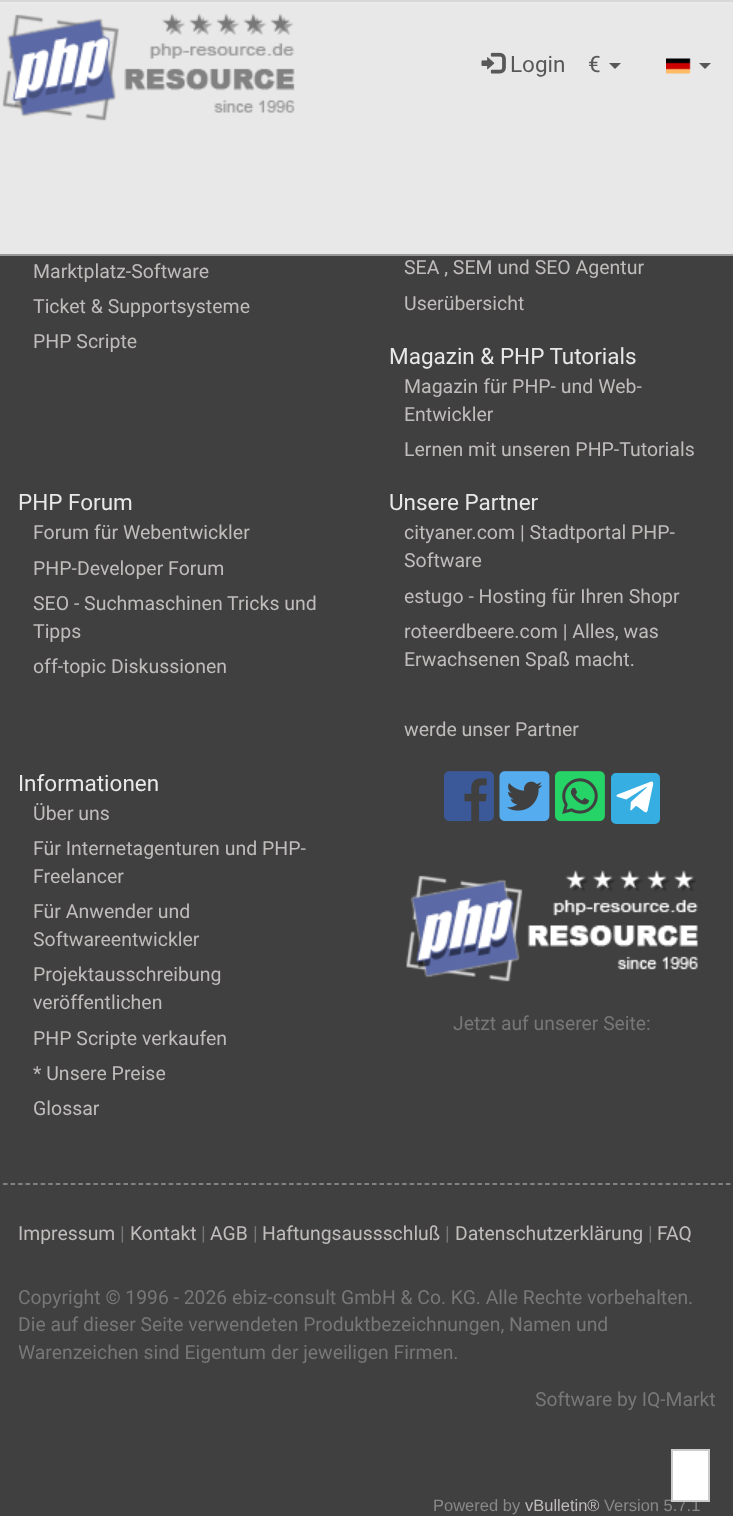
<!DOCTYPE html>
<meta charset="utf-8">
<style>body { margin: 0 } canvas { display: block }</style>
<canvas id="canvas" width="733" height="1516"></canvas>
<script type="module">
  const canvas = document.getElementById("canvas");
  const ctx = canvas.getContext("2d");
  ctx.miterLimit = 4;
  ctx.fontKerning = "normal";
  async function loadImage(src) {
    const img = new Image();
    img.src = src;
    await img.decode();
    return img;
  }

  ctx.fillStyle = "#404040";
  ctx.fillRect(0, 0, 733, 1516);
  ctx.fillStyle = "#e8e8e8";
  ctx.fillRect(0, 4, 733, 250);
  ctx.fillStyle = "#989898";
  ctx.fillRect(0, 254, 733, 2);
  ctx.fillStyle = "#eaeaea";
  ctx.fillRect(0, 2, 733, 2);
  ctx.fillStyle = "#d7d7d7";
  ctx.fillRect(0, 0, 733, 2);
  ctx.drawImage(await loadImage("img1.png"), 2, 13, 293, 108);
  ctx.drawImage(await loadImage("img2.png"), 481, 52, 25, 22);
  ctx.font = "22.5px Roboto";
  ctx.fillStyle = "#585858";
  ctx.fillText("Login", 510, 72);
  ctx.fillText("€", 588, 72);
  ctx.beginPath();
  ctx.moveTo(609, 63);
  ctx.lineTo(621, 63);
  ctx.lineTo(615, 69);
  ctx.closePath();
  ctx.fill();
  ctx.drawImage(await loadImage("img3.png"), 666, 58, 25, 16);
  ctx.beginPath();
  ctx.moveTo(699, 63);
  ctx.lineTo(711, 63);
  ctx.lineTo(705, 69);
  ctx.closePath();
  ctx.fill();
  ctx.font = "19.5px Roboto";
  ctx.fillStyle = "#c1bcbc";
  ctx.fillText("Marktplatz-Software", 33, 278);
  ctx.fillText("Ticket & Supportsysteme", 33, 313);
  ctx.fillText("PHP Scripte", 33, 348);
  ctx.fillText("SEA , SEM und SEO Agentur", 404, 274);
  ctx.fillText("Userübersicht", 404, 310);
  ctx.font = "22.5px Roboto";
  ctx.fillStyle = "#e8e8e8";
  ctx.fillText("Magazin & PHP Tutorials", 389, 364);
  ctx.font = "19.5px Roboto";
  ctx.fillStyle = "#c1bcbc";
  ctx.fillText("Magazin für PHP- und Web-", 404, 393);
  ctx.fillText("Entwickler", 404, 421);
  ctx.fillText("Lernen mit unseren PHP-Tutorials", 404, 456);
  ctx.font = "22.5px Roboto";
  ctx.fillStyle = "#e8e8e8";
  ctx.fillText("PHP Forum", 18, 510);
  ctx.font = "19.5px Roboto";
  ctx.fillStyle = "#c1bcbc";
  ctx.fillText("Forum für Webentwickler", 33, 539);
  ctx.fillText("PHP-Developer Forum", 33, 575);
  ctx.fillText("SEO - Suchmaschinen Tricks und", 33, 610);
  ctx.fillText("Tipps", 33, 638);
  ctx.fillText("off-topic Diskussionen", 33, 673);
  ctx.font = "22.5px Roboto";
  ctx.fillStyle = "#e8e8e8";
  ctx.fillText("Unsere Partner", 389, 510);
  ctx.font = "19.5px Roboto";
  ctx.fillStyle = "#c1bcbc";
  ctx.fillText("cityaner.com | Stadtportal PHP-", 404, 539);
  ctx.fillText("Software", 404, 567);
  ctx.fillText("estugo - Hosting für Ihren Shopr", 404, 603);
  ctx.fillText("roteerdbeere.com | Alles, was", 404, 638);
  ctx.fillText("Erwachsenen Spaß macht.", 404, 666);
  ctx.fillText("werde unser Partner", 404, 736);
  ctx.font = "22.5px Roboto";
  ctx.fillStyle = "#e8e8e8";
  ctx.fillText("Informationen", 18, 791);
  ctx.font = "19.5px Roboto";
  ctx.fillStyle = "#c1bcbc";
  ctx.fillText("Über uns", 33, 820);
  ctx.fillText("Für Internetagenturen und PHP-", 33, 855);
  ctx.fillText("Freelancer", 33, 883);
  ctx.fillText("Für Anwender und", 33, 918);
  ctx.fillText("Softwareentwickler", 33, 946);
  ctx.fillText("Projektausschreibung", 33, 981);
  ctx.fillText("veröffentlichen", 33, 1009);
  ctx.fillText("PHP Scripte verkaufen", 33, 1045);
  ctx.fillText("* Unsere Preise", 33, 1080);
  ctx.fillText("Glossar", 33, 1115);
  ctx.drawImage(await loadImage("img4.png"), 444, 771, 50, 51);
  ctx.drawImage(await loadImage("img5.png"), 499, 771, 51, 51);
  ctx.drawImage(await loadImage("img6.png"), 555, 771, 50, 51);
  ctx.fillStyle = "#37aee2";
  ctx.beginPath();
  ctx.roundRect(613.5, 775.5, 44, 46, 2.5);
  ctx.fill();
  ctx.strokeStyle = "#37aee2";
  ctx.lineWidth = 5;
  ctx.stroke();
  ctx.drawImage(await loadImage("img7.png"), 616, 781, 38, 32);
  ctx.drawImage(await loadImage("img8.png"), 406, 870, 292, 112);
  ctx.font = "19.35px Roboto";
  ctx.fillStyle = "#777777";
  ctx.fillText("Jetzt auf unserer Seite:", 453, 1030);
  ctx.beginPath();
  ctx.moveTo(-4.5, 1184);
  ctx.lineTo(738, 1184);
  ctx.strokeStyle = "#989898";
  ctx.lineWidth = 1.5;
  ctx.setLineDash([4.5, 3.03]);
  ctx.stroke();
  ctx.fillStyle = "#c1bcbc";
  ctx.fillText("Impressum", 18, 1240);
  ctx.fillStyle = "#777777";
  ctx.fillText("|", 120, 1240);
  ctx.fillStyle = "#c1bcbc";
  ctx.fillText("Kontakt", 130, 1240);
  ctx.fillStyle = "#777777";
  ctx.fillText("|", 201, 1240);
  ctx.fillStyle = "#c1bcbc";
  ctx.fillText("AGB", 210, 1240);
  ctx.fillStyle = "#777777";
  ctx.fillText("|", 253, 1240);
  ctx.fillStyle = "#c1bcbc";
  ctx.fillText("Haftungsaussschluß", 262, 1240);
  ctx.fillStyle = "#777777";
  ctx.fillText("|", 445, 1240);
  ctx.fillStyle = "#c1bcbc";
  ctx.fillText("Datenschutzerklärung", 455, 1240);
  ctx.fillStyle = "#777777";
  ctx.fillText("|", 648, 1240);
  ctx.fillStyle = "#c1bcbc";
  ctx.fillText("FAQ", 657, 1240);
  ctx.fillStyle = "#777777";
  ctx.fillText("Copyright © 1996 - 2026 ebiz-consult GmbH & Co. KG. Alle Rechte vorbehalten.", 18, 1304);
  ctx.fillText("Die auf dieser Seite verwendeten Produktbezeichnungen, Namen und", 18, 1331);
  ctx.fillText("Warenzeichen sind Eigentum der jeweiligen Firmen.", 18, 1359);
  ctx.fillText("Software by IQ-Markt", 535, 1406);
  ctx.font = "16.5px Liberation Sans";
  ctx.fillStyle = "#888888";
  ctx.fillText("Powered by", 433, 1511);
  ctx.fillStyle = "#c1bcbc";
  ctx.fillText("vBulletin®", 525, 1511);
  ctx.fillStyle = "#888888";
  ctx.fillText("Version 5.7.1", 604, 1511);
  ctx.fillStyle = "#ffffff";
  ctx.beginPath();
  ctx.rect(672, 1450, 37, 51);
  ctx.fill();
  ctx.strokeStyle = "#cccccc";
  ctx.lineWidth = 2;
  ctx.setLineDash([]);
  ctx.stroke();
</script>
